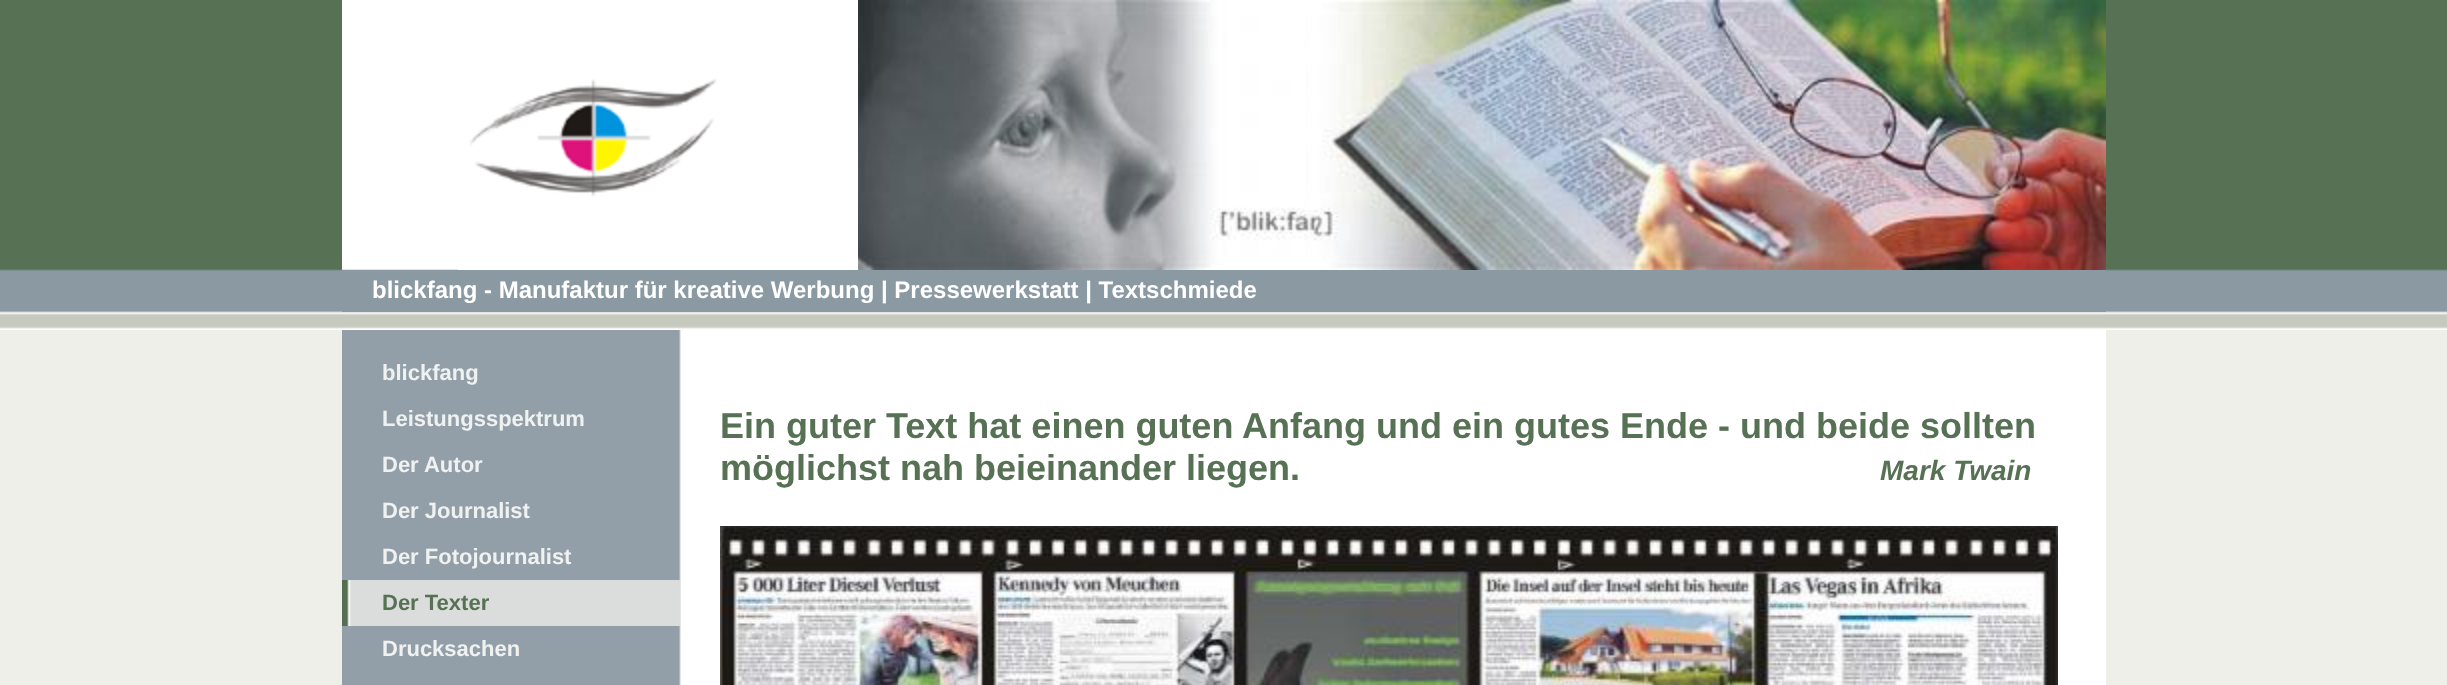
<!DOCTYPE html>
<meta charset="utf-8">
<style>body { margin: 0 } canvas { display: block }</style>
<canvas id="canvas" width="2447" height="685"></canvas>
<script type="module">
  const canvas = document.getElementById("canvas");
  const ctx = canvas.getContext("2d");
  ctx.miterLimit = 4;
  ctx.fontKerning = "normal";
  async function loadImage(src) {
    const img = new Image();
    img.src = src;
    await img.decode();
    return img;
  }

  ctx.fillStyle = "#eeefe9";
  ctx.fillRect(0, 0, 2447, 685);
  ctx.drawImage(await loadImage("img1.png"), 0, 0, 2447, 330);
  ctx.drawImage(await loadImage("img2.png"), 342, 330, 1764, 355);
  ctx.fillStyle = "#ffffff";
  ctx.fillRect(342, 0, 1764, 329);
  ctx.drawImage(await loadImage("img3.png"), 342, 269, 1764, 60);
  ctx.drawImage(await loadImage("img4.png"), 458, 78, 400, 192);
  ctx.drawImage(await loadImage("img5.png"), 858, 0, 1248, 270);
  ctx.fillStyle = "#8b99a2";
  ctx.fillRect(342, 270, 1764, 42);
  ctx.font = "bold 24px Liberation Sans";
  ctx.fillStyle = "#ffffff";
  ctx.fillText("blickfang - Manufaktur für kreative Werbung | Pressewerkstatt | Textschmiede", 372, 298);
  ctx.font = "bold 22px Liberation Sans";
  ctx.fillStyle = "#f0f2f1";
  ctx.fillText("blickfang", 382, 380);
  ctx.fillText("Leistungsspektrum", 382, 426);
  ctx.fillText("Der Autor", 382, 472);
  ctx.fillText("Der Journalist", 382, 518);
  ctx.fillText("Der Fotojournalist", 382, 564);
  ctx.drawImage(await loadImage("img6.png"), 342, 580, 338, 46);
  ctx.fillStyle = "#567153";
  ctx.fillText("Der Texter", 382, 610);
  ctx.fillStyle = "#f0f2f1";
  ctx.fillText("Drucksachen", 382, 656);
  ctx.font = "bold 36px Liberation Sans";
  ctx.fillStyle = "#567153";
  ctx.fillText("Ein guter Text hat einen guten Anfang und ein gutes Ende - und beide sollten", 720, 438);
  ctx.fillText("möglichst nah beieinander liegen.", 720, 480);
  ctx.font = "italic bold 28px Liberation Sans";
  ctx.fillText("Mark Twain", 1880, 480);
  ctx.drawImage(await loadImage("img7.png"), 720, 526, 1338, 159);
</script>
